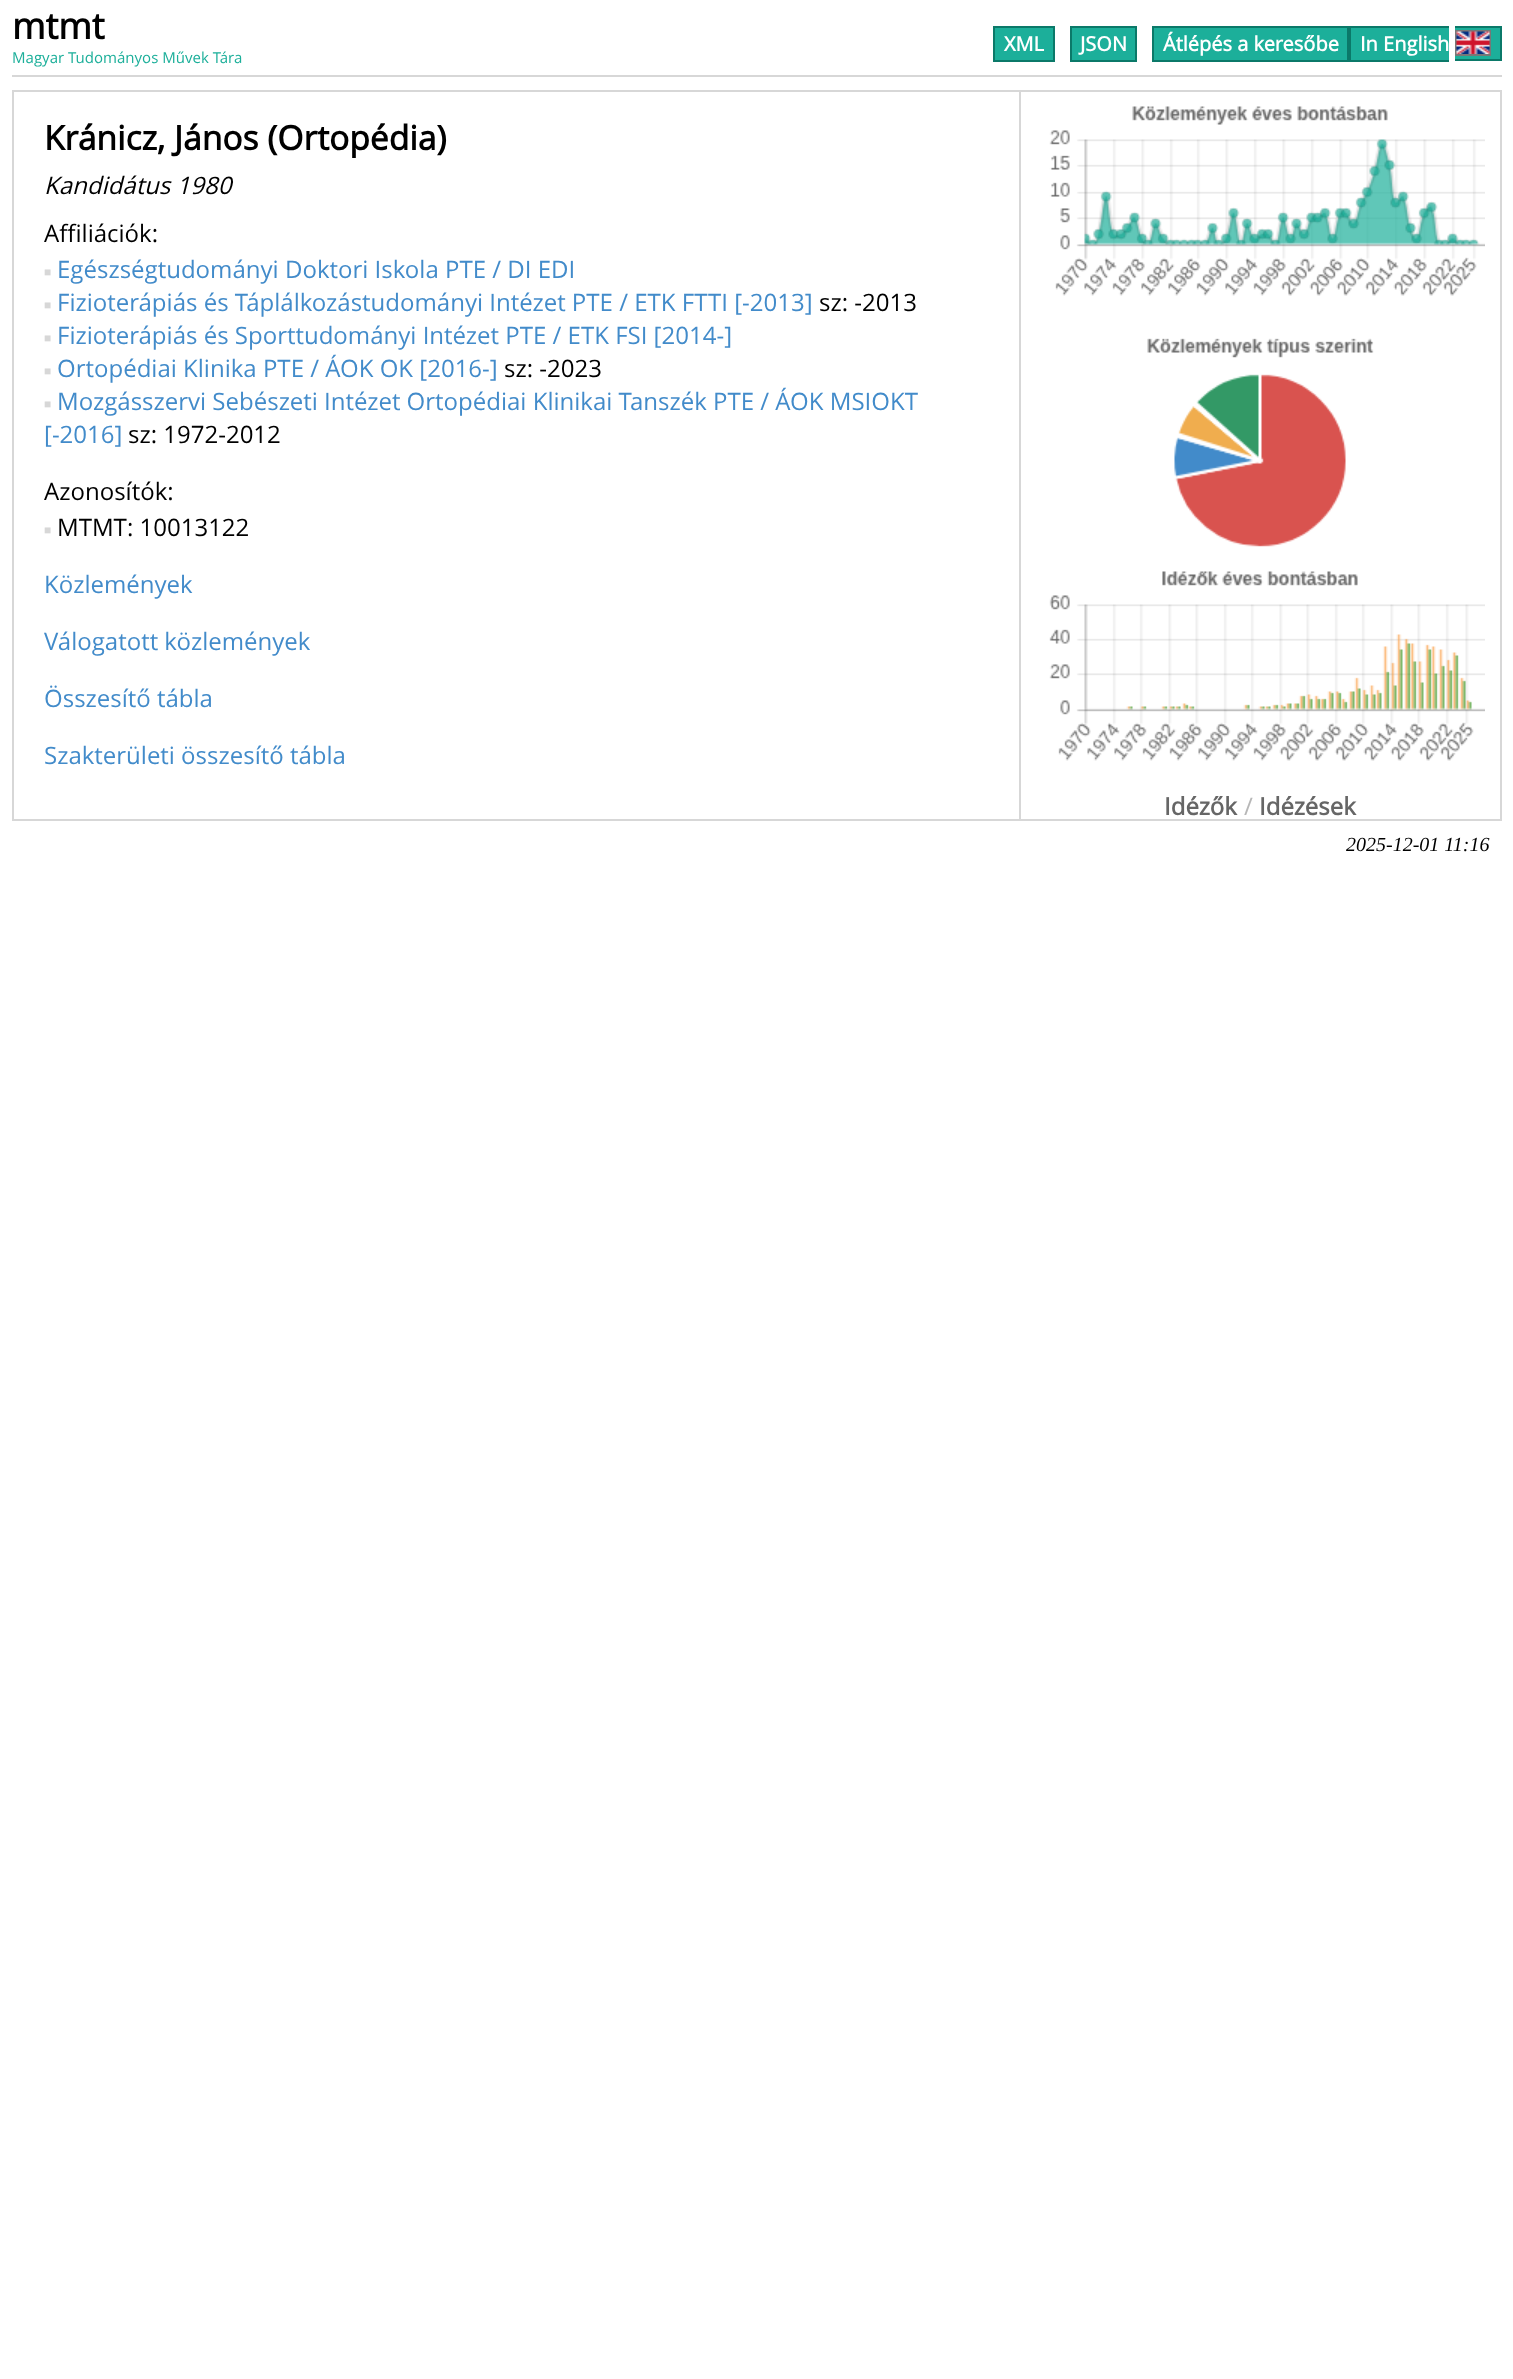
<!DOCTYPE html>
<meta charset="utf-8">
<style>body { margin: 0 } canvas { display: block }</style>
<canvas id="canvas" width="1513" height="2379"></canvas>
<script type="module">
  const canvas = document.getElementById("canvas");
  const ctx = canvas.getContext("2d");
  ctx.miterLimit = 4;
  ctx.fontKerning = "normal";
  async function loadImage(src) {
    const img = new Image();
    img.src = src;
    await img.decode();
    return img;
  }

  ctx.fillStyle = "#ffffff";
  ctx.fillRect(0, 0, 1513, 2379);
  ctx.fillStyle = "#d7d7d7";
  ctx.fillRect(12, 75, 1490, 2);
  ctx.font = "bold 36px Open Sans";
  ctx.fillStyle = "#000000";
  ctx.fillText("mtmt", 12, 39);
  ctx.font = "15px Open Sans";
  ctx.fillStyle = "#1caf9a";
  ctx.fillText("Magyar Tudományos Művek Tára", 12, 63);
  ctx.beginPath();
  ctx.rect(994, 27, 60, 34);
  ctx.fill();
  ctx.strokeStyle = "#0b7969";
  ctx.lineWidth = 2;
  ctx.stroke();
  ctx.font = "bold 20px Open Sans";
  ctx.fillStyle = "#ffffff";
  ctx.fillText("XML", 1004, 51);
  ctx.fillStyle = "#1caf9a";
  ctx.beginPath();
  ctx.rect(1071, 27, 65, 34);
  ctx.fill();
  ctx.stroke();
  ctx.fillStyle = "#ffffff";
  ctx.fillText("JSON", 1080, 51);
  ctx.fillStyle = "#1caf9a";
  ctx.beginPath();
  ctx.rect(1153, 27, 195, 34);
  ctx.fill();
  ctx.stroke();
  ctx.fillStyle = "#ffffff";
  ctx.fillText("Átlépés a keresőbe", 1163, 51);
  ctx.fillStyle = "#1caf9a";
  ctx.fillRect(1351, 28, 98, 32);
  ctx.fillStyle = "#ffffff";
  ctx.fillText("In English", 1360, 51);
  ctx.fillStyle = "#0b7969";
  ctx.fillRect(1349, 26, 100, 2);
  ctx.fillRect(1349, 60, 100, 2);
  ctx.fillRect(1349, 26, 2, 36);
  ctx.fillStyle = "#1caf9a";
  ctx.fillRect(1455, 28, 45, 31);
  ctx.fillStyle = "#0b7969";
  ctx.fillRect(1455, 26, 47, 2);
  ctx.fillRect(1500, 26, 2, 34);
  ctx.fillRect(1455, 59, 47, 2);
  ctx.strokeStyle = "#777777";
  ctx.strokeRect(1456, 31, 34, 24);
  ctx.drawImage(await loadImage("img1.png"), 1456, 31, 34, 23);
  ctx.strokeStyle = "#d7d7d7";
  ctx.strokeRect(13, 91, 1488, 729);
  ctx.font = "bold 33.6px Open Sans";
  ctx.fillStyle = "#000000";
  ctx.fillText("Kránicz, János (Ortopédia)", 44, 150);
  ctx.font = "italic 24px Open Sans";
  ctx.fillText("Kandidátus 1980", 44, 194);
  ctx.font = "24px Open Sans";
  ctx.fillText("Affiliációk:", 44, 242);
  ctx.font = "12px Liberation Serif";
  ctx.fillStyle = "#d7d7d7";
  ctx.fillText("■", 44, 276);
  ctx.font = "24px Open Sans";
  ctx.fillStyle = "#428bca";
  ctx.fillText("Egészségtudományi Doktori Iskola PTE / DI EDI", 57, 278);
  ctx.font = "12px Liberation Serif";
  ctx.fillStyle = "#d7d7d7";
  ctx.fillText("■", 44, 309);
  ctx.font = "24px Open Sans";
  ctx.fillStyle = "#428bca";
  ctx.fillText("Fizioterápiás és Táplálkozástudományi Intézet PTE / ETK FTTI [-2013]", 57, 311);
  ctx.fillStyle = "#000000";
  ctx.fillText("sz: -2013", 819, 311);
  ctx.font = "12px Liberation Serif";
  ctx.fillStyle = "#d7d7d7";
  ctx.fillText("■", 44, 342);
  ctx.font = "24px Open Sans";
  ctx.fillStyle = "#428bca";
  ctx.fillText("Fizioterápiás és Sporttudományi Intézet PTE / ETK FSI [2014-]", 57, 344);
  ctx.font = "12px Liberation Serif";
  ctx.fillStyle = "#d7d7d7";
  ctx.fillText("■", 44, 375);
  ctx.font = "24px Open Sans";
  ctx.fillStyle = "#428bca";
  ctx.fillText("Ortopédiai Klinika PTE / ÁOK OK [2016-]", 57, 377);
  ctx.fillStyle = "#000000";
  ctx.fillText("sz: -2023", 504, 377);
  ctx.font = "12px Liberation Serif";
  ctx.fillStyle = "#d7d7d7";
  ctx.fillText("■", 44, 408);
  ctx.font = "24px Open Sans";
  ctx.fillStyle = "#428bca";
  ctx.fillText("Mozgásszervi Sebészeti Intézet Ortopédiai Klinikai Tanszék PTE / ÁOK MSIOKT", 57, 410);
  ctx.fillText("[-2016]", 44, 443);
  ctx.fillStyle = "#000000";
  ctx.fillText("sz: 1972-2012", 128, 443);
  ctx.fillText("Azonosítók:", 44, 500);
  ctx.font = "12px Liberation Serif";
  ctx.fillStyle = "#d7d7d7";
  ctx.fillText("■", 44, 534);
  ctx.font = "24px Open Sans";
  ctx.fillStyle = "#000000";
  ctx.fillText("MTMT: 10013122", 57, 536);
  ctx.fillStyle = "#428bca";
  ctx.fillText("Közlemények", 44, 593);
  ctx.fillText("Válogatott közlemények", 44, 650);
  ctx.fillText("Összesítő tábla", 44, 707);
  ctx.fillText("Szakterületi összesítő tábla", 44, 764);
  ctx.fillStyle = "#d7d7d7";
  ctx.fillRect(1019, 92, 2, 727);
  ctx.drawImage(await loadImage("img2.png"), 1049, 106, 436, 190);
  ctx.drawImage(await loadImage("img3.png"), 1147, 338, 227, 209);
  ctx.drawImage(await loadImage("img4.png"), 1049, 571, 436, 190);
  ctx.font = "bold 24px Open Sans";
  ctx.fillStyle = "#666666";
  ctx.fillText("Idézők", 1164, 815);
  ctx.font = "24px Open Sans";
  ctx.fillStyle = "#b7b7b7";
  ctx.fillText("/", 1244, 815);
  ctx.font = "bold 24px Open Sans";
  ctx.fillStyle = "#666666";
  ctx.fillText("Idézések", 1259, 815);
  ctx.font = "italic 20px Liberation Serif";
  ctx.fillStyle = "#000000";
  ctx.fillText("2025-12-01 11:16", 1346, 851);
</script>
